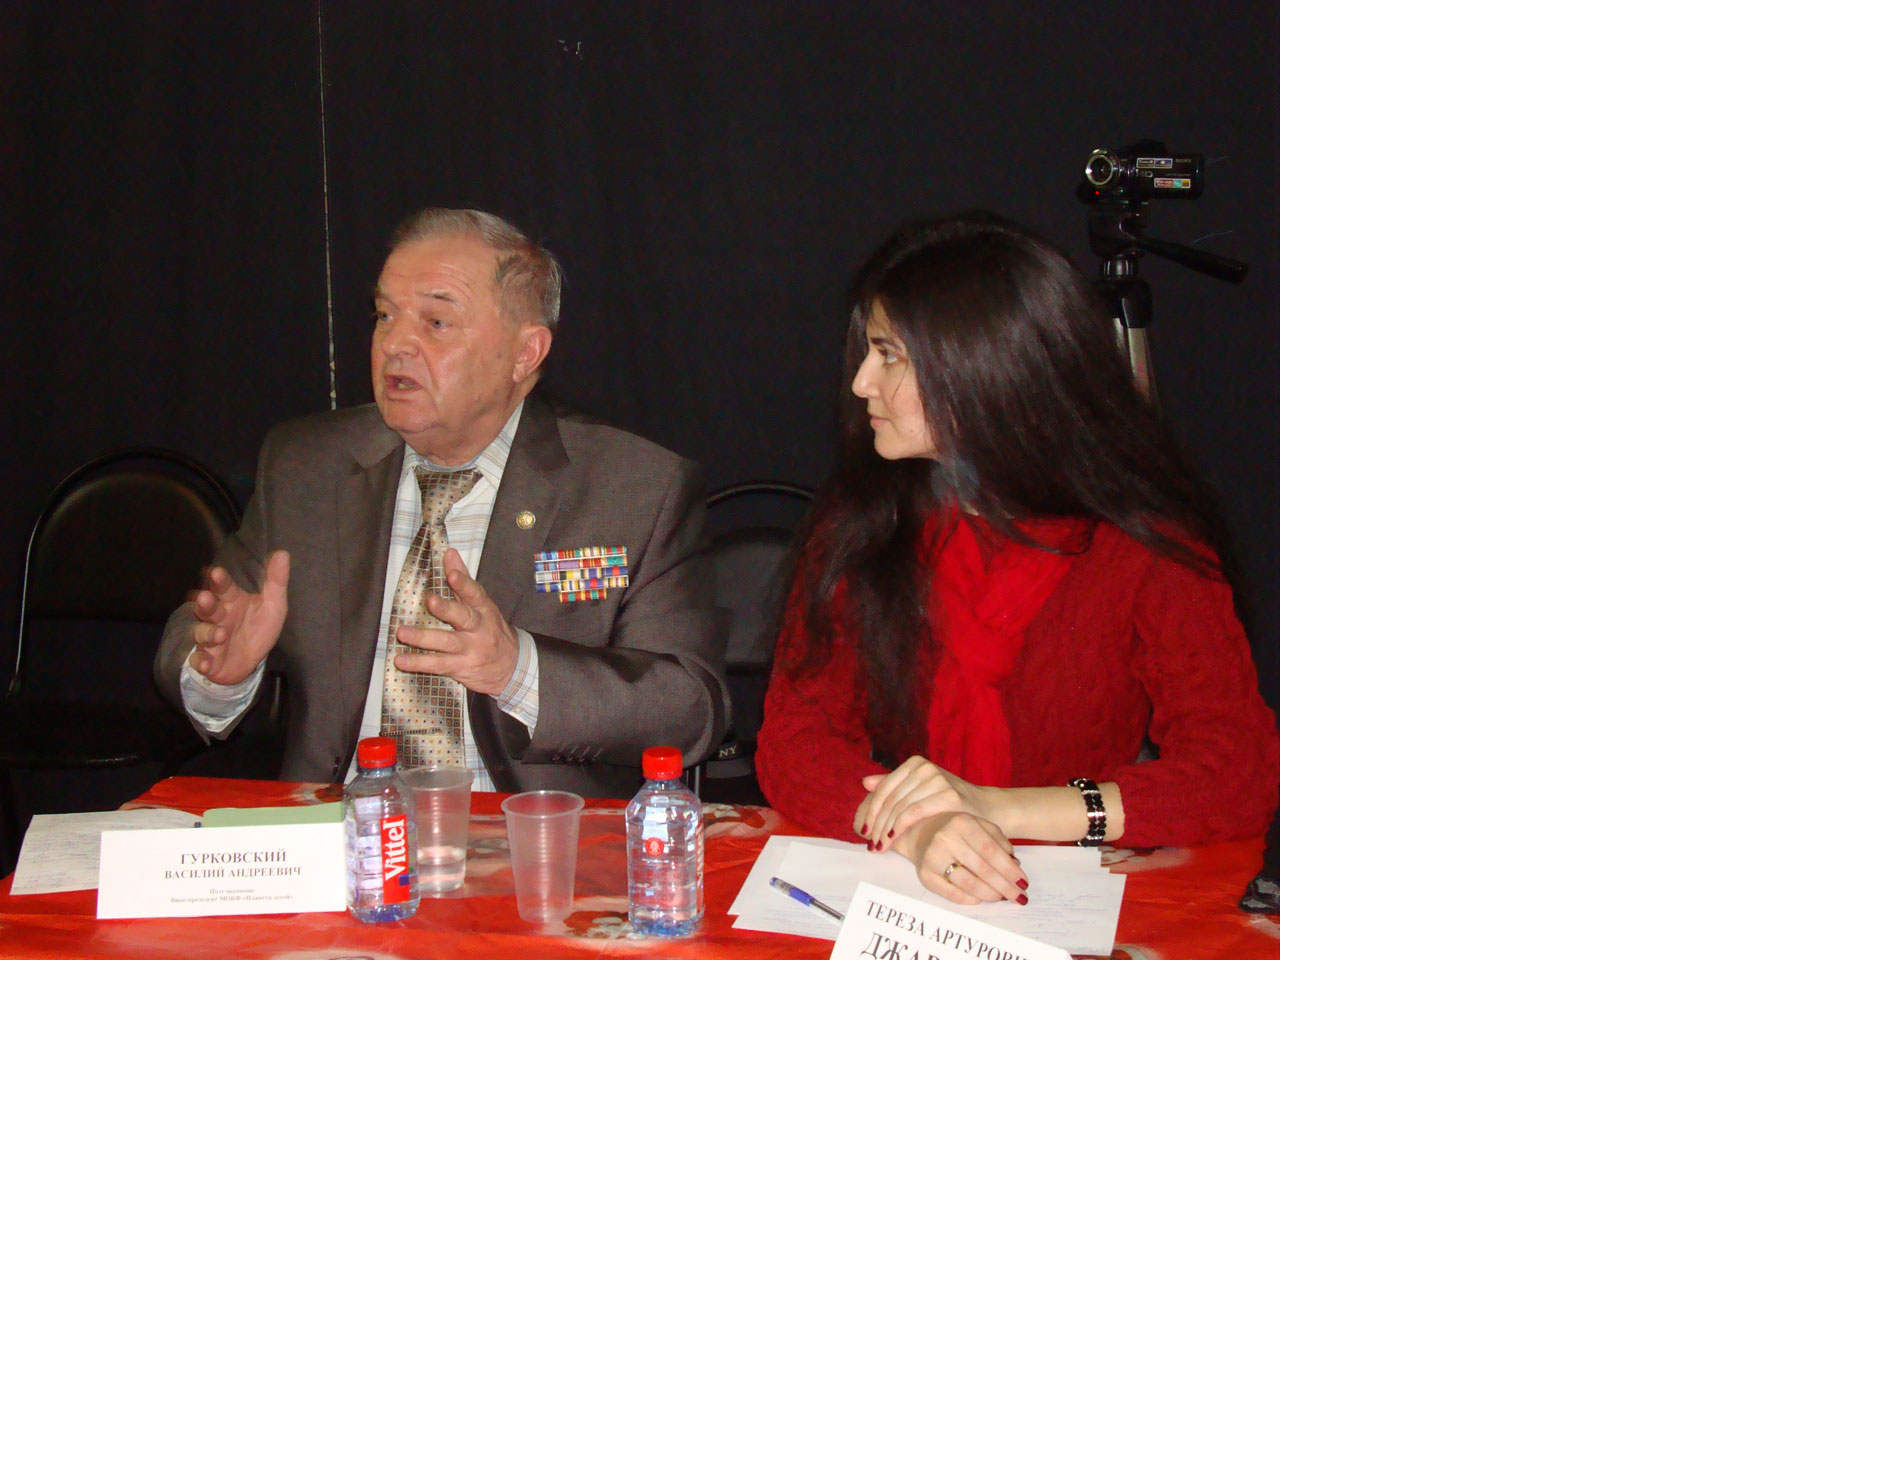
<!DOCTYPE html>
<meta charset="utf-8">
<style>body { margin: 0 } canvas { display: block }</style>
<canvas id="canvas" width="1900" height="1459"></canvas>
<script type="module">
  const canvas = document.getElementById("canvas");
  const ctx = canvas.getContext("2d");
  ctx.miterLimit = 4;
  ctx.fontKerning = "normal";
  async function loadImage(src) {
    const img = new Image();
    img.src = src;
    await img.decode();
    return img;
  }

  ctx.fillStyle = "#ffffff";
  ctx.fillRect(0, 0, 1900, 1459);
  ctx.drawImage(await loadImage("img1.png"), 0, 0, 1280, 960);
</script>
